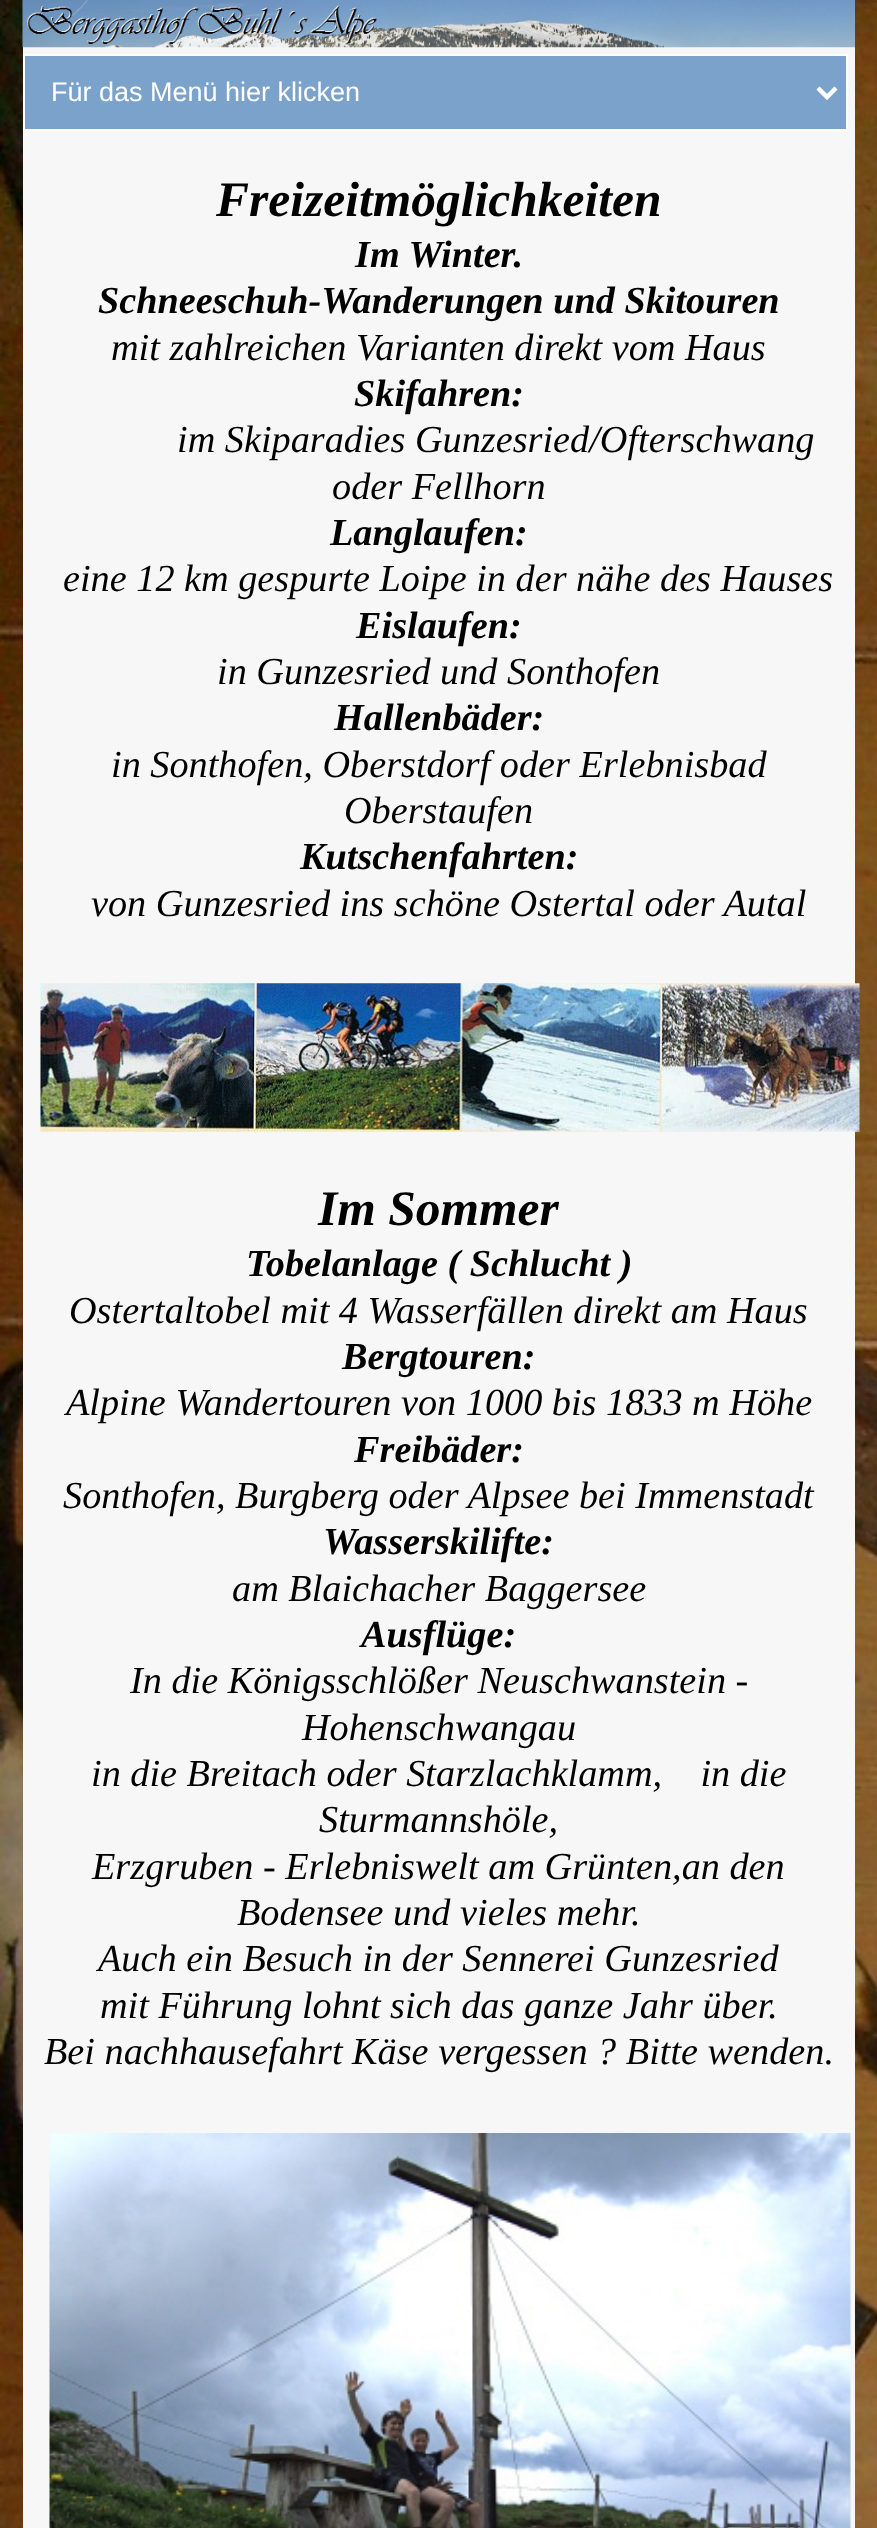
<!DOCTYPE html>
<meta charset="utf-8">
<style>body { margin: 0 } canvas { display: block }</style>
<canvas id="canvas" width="877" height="2528"></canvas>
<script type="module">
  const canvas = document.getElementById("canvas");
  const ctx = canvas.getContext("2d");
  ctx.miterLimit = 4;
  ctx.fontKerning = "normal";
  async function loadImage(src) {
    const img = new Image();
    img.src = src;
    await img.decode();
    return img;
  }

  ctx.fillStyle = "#ffffff";
  ctx.fillRect(0, 0, 877, 2528);
  ctx.drawImage(await loadImage("img1.png"), 0, 0, 877, 2528);
  ctx.fillStyle = "#f7f7f7";
  ctx.fillRect(23, 47, 832, 2481);
  ctx.drawImage(await loadImage("img2.png"), 22, 0, 833, 48);
  ctx.fillStyle = "#7ba2cb";
  ctx.beginPath();
  ctx.rect(24, 55, 823, 75);
  ctx.fill();
  ctx.strokeStyle = "#ffffff";
  ctx.lineWidth = 2;
  ctx.stroke();
  ctx.beginPath();
  ctx.moveTo(818, 88);
  ctx.lineTo(827, 97);
  ctx.lineTo(836, 88);
  ctx.lineWidth = 4.5;
  ctx.stroke();
  ctx.font = "27px Liberation Sans";
  ctx.fillStyle = "#ffffff";
  ctx.fillText("Für das Menü hier klicken", 51, 101);
  ctx.font = "italic bold 49.5px Liberation Serif";
  ctx.fillStyle = "#000000";
  ctx.fillText("Freizeitmöglichkeiten", 216, 216);
  ctx.font = "italic bold 38.25px Liberation Serif";
  ctx.fillText("Im Winter.", 355, 267);
  ctx.fillText("Schneeschuh-Wanderungen und Skitouren", 98, 313);
  ctx.font = "italic 38.25px Liberation Serif";
  ctx.fillText("mit zahlreichen Varianten direkt vom Haus", 111, 360);
  ctx.font = "italic bold 38.25px Liberation Serif";
  ctx.fillText("Skifahren:", 354, 406);
  ctx.font = "italic 38.25px Liberation Serif";
  ctx.fillText("im Skiparadies Gunzesried/Ofterschwang", 177, 452);
  ctx.fillText("oder Fellhorn", 332, 499);
  ctx.font = "italic bold 38.25px Liberation Serif";
  ctx.fillText("Langlaufen:", 330, 545);
  ctx.font = "italic 38.25px Liberation Serif";
  ctx.fillText("eine 12 km gespurte Loipe in der nähe des Hauses", 63, 591);
  ctx.font = "italic bold 38.25px Liberation Serif";
  ctx.fillText("Eislaufen:", 356, 638);
  ctx.font = "italic 38.25px Liberation Serif";
  ctx.fillText("in Gunzesried und Sonthofen", 217, 684);
  ctx.font = "italic bold 38.25px Liberation Serif";
  ctx.fillText("Hallenbäder:", 334, 730);
  ctx.font = "italic 38.25px Liberation Serif";
  ctx.fillText("in Sonthofen, Oberstdorf oder Erlebnisbad", 111, 777);
  ctx.fillText("Oberstaufen", 344, 823);
  ctx.font = "italic bold 38.25px Liberation Serif";
  ctx.fillText("Kutschenfahrten:", 300, 869);
  ctx.font = "italic 38.25px Liberation Serif";
  ctx.fillText("von Gunzesried ins schöne Ostertal oder Autal", 91, 916);
  ctx.drawImage(await loadImage("img3.png"), 40, 983, 820, 149);
  ctx.font = "italic bold 49.5px Liberation Serif";
  ctx.fillText("Im Sommer", 318, 1225);
  ctx.font = "italic bold 38.25px Liberation Serif";
  ctx.fillText("Tobelanlage ( Schlucht )", 246, 1276);
  ctx.font = "italic 38.25px Liberation Serif";
  ctx.fillText("Ostertaltobel mit 4 Wasserfällen direkt am Haus", 69, 1323);
  ctx.font = "italic bold 38.25px Liberation Serif";
  ctx.fillText("Bergtouren:", 342, 1369);
  ctx.font = "italic 38.25px Liberation Serif";
  ctx.fillText("Alpine Wandertouren von 1000 bis 1833 m Höhe", 66, 1415);
  ctx.font = "italic bold 38.25px Liberation Serif";
  ctx.fillText("Freibäder:", 354, 1462);
  ctx.font = "italic 38.25px Liberation Serif";
  ctx.fillText("Sonthofen, Burgberg oder Alpsee bei Immenstadt", 63, 1508);
  ctx.font = "italic bold 38.25px Liberation Serif";
  ctx.fillText("Wasserskilifte:", 323, 1554);
  ctx.font = "italic 38.25px Liberation Serif";
  ctx.fillText("am Blaichacher Baggersee", 232, 1601);
  ctx.font = "italic bold 38.25px Liberation Serif";
  ctx.fillText("Ausflüge:", 361, 1647);
  ctx.font = "italic 38.25px Liberation Serif";
  ctx.fillText("In die Königsschlößer Neuschwanstein -", 130, 1693);
  ctx.fillText("Hohenschwangau", 302, 1740);
  ctx.fillText("in die Breitach oder Starzlachklamm,    in die", 91, 1786);
  ctx.fillText("Sturmannshöle,", 319, 1832);
  ctx.fillText("Erzgruben - Erlebniswelt am Grünten,an den", 92, 1879);
  ctx.fillText("Bodensee und vieles mehr.", 237, 1925);
  ctx.fillText("Auch ein Besuch in der Sennerei Gunzesried", 98, 1971);
  ctx.fillText("mit Führung lohnt sich das ganze Jahr über.", 100, 2018);
  ctx.fillText("Bei nachhausefahrt Käse vergessen ? Bitte wenden.", 44, 2064);
  ctx.drawImage(await loadImage("img4.png"), 49, 2133, 802, 395);
</script>
